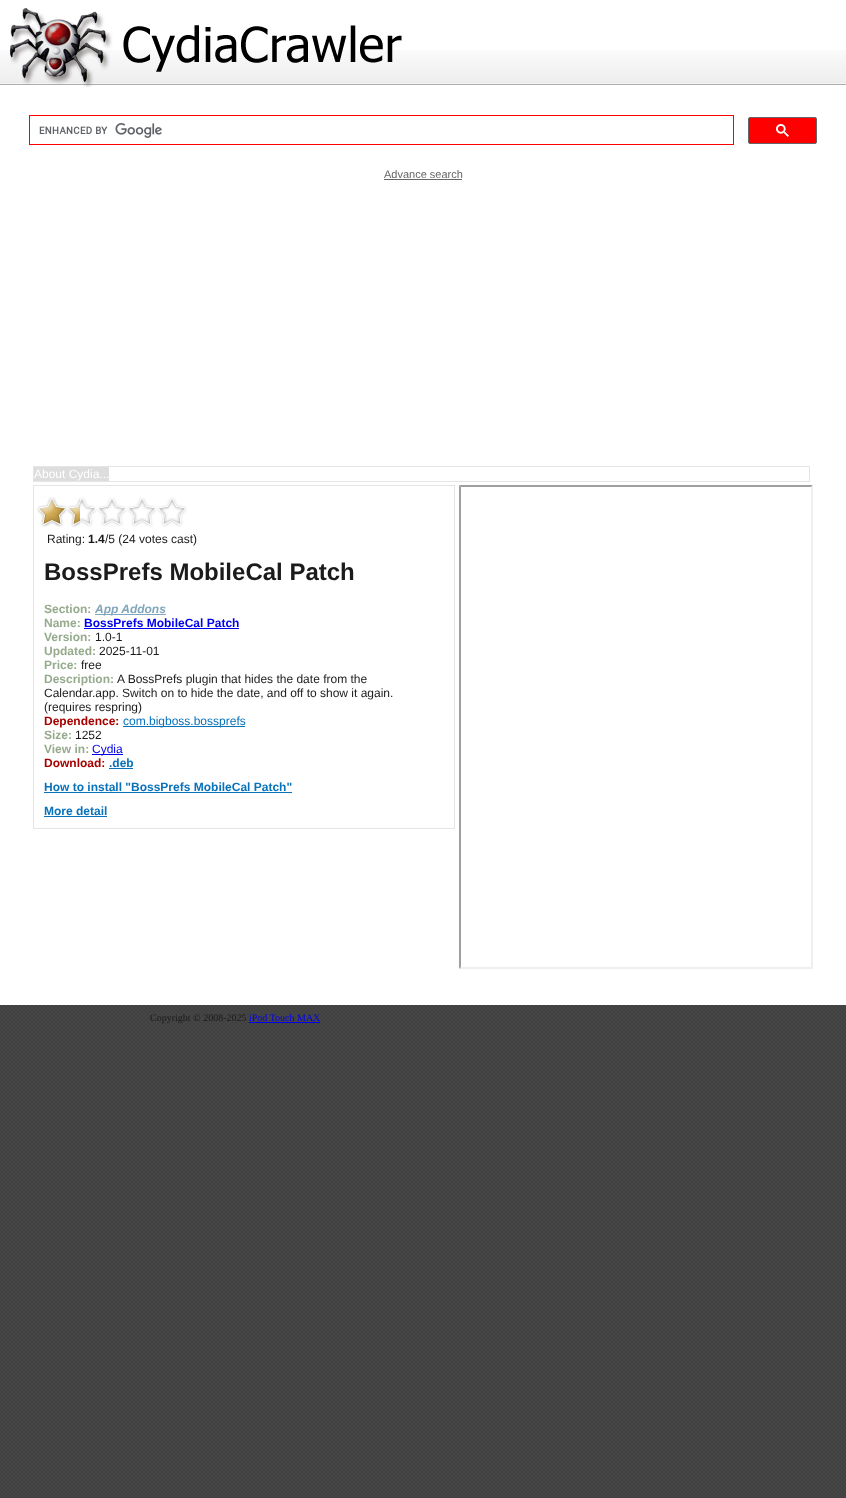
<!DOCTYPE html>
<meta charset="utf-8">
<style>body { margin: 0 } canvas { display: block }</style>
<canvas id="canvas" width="846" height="1498"></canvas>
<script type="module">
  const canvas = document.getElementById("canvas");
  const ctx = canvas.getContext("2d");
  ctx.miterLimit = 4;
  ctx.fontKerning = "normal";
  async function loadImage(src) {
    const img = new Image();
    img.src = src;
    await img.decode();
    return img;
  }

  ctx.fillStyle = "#ffffff";
  ctx.fillRect(0, 0, 846, 1498);
  ctx.drawImage(await loadImage("img1.png"), 0, 1005, 846, 493);
  ctx.drawImage(await loadImage("img2.png"), 0, 50, 846, 35);
  ctx.drawImage(await loadImage("img3.png"), 10, 8, 392, 79);
  ctx.strokeStyle = "#ff0000";
  ctx.strokeRect(29.5, 115.5, 704, 29);
  ctx.drawImage(await loadImage("img4.png"), 39, 123, 123, 15);
  ctx.fillStyle = "#ff0000";
  ctx.beginPath();
  ctx.roundRect(748.5, 117.5, 68, 26, 1.5);
  ctx.fill();
  ctx.strokeStyle = "#666666";
  ctx.stroke();
  ctx.drawImage(await loadImage("img5.png"), 776, 124, 13, 13);
  ctx.font = "11px Liberation Sans";
  ctx.fillStyle = "#666666";
  ctx.fillText("Advance search", 384, 178);
  ctx.fillRect(384, 179, 78, 1);
  ctx.strokeStyle = "#e5e5e5";
  ctx.strokeRect(33.5, 466.5, 776, 15);
  ctx.fillStyle = "#dddddd";
  ctx.fillRect(34, 467, 75, 14);
  ctx.font = "12px Liberation Sans";
  ctx.fillStyle = "#ffffff";
  ctx.fillText("About Cydia...", 34, 478);
  ctx.strokeRect(33.5, 485.5, 421, 343);
  ctx.drawImage(await loadImage("img6.png"), 80, 497, 107, 30);
  ctx.drawImage(await loadImage("img7.png"), 37, 497, 43, 30);
  ctx.fillStyle = "#1b1b1b";
  ctx.fillText("Rating:", 47, 543);
  ctx.font = "bold 12px Liberation Sans";
  ctx.fillText("1.4", 88, 543);
  ctx.font = "12px Liberation Sans";
  ctx.fillText("/5 (24 votes cast)", 105, 543);
  ctx.font = "bold 24px Liberation Sans";
  ctx.fillText("BossPrefs MobileCal Patch", 44, 580);
  ctx.font = "bold 12px Liberation Sans";
  ctx.fillStyle = "#96aa8d";
  ctx.fillText("Section:", 44, 613);
  ctx.fillStyle = "#7fa6bc";
  ctx.fillRect(95, 614, 71, 1);
  ctx.font = "italic bold 12px Liberation Sans";
  ctx.fillText("App Addons", 95, 613);
  ctx.font = "bold 12px Liberation Sans";
  ctx.fillStyle = "#96aa8d";
  ctx.fillText("Name:", 44, 627);
  ctx.fillStyle = "#0000ee";
  ctx.fillText("BossPrefs MobileCal Patch", 84, 627);
  ctx.fillRect(84, 628, 155, 1);
  ctx.fillStyle = "#96aa8d";
  ctx.fillText("Version:", 44, 641);
  ctx.font = "12px Liberation Sans";
  ctx.fillStyle = "#1b1b1b";
  ctx.fillText("1.0-1", 95, 641);
  ctx.font = "bold 12px Liberation Sans";
  ctx.fillStyle = "#96aa8d";
  ctx.fillText("Updated:", 44, 655);
  ctx.font = "12px Liberation Sans";
  ctx.fillStyle = "#1b1b1b";
  ctx.fillText("2025-11-01", 99, 655);
  ctx.font = "bold 12px Liberation Sans";
  ctx.fillStyle = "#96aa8d";
  ctx.fillText("Price:", 44, 669);
  ctx.font = "12px Liberation Sans";
  ctx.fillStyle = "#1b1b1b";
  ctx.fillText("free", 81, 669);
  ctx.font = "bold 12px Liberation Sans";
  ctx.fillStyle = "#96aa8d";
  ctx.fillText("Description:", 44, 683);
  ctx.font = "12px Liberation Sans";
  ctx.fillStyle = "#1b1b1b";
  ctx.fillText("A BossPrefs plugin that hides the date from the", 117, 683);
  ctx.fillText("Calendar.app. Switch on to hide the date, and off to show it again.", 44, 697);
  ctx.fillText("(requires respring)", 44, 711);
  ctx.font = "bold 12px Liberation Sans";
  ctx.fillStyle = "#a80000";
  ctx.fillText("Dependence:", 44, 725);
  ctx.fillStyle = "#0872ba";
  ctx.fillRect(123, 726, 122, 1);
  ctx.font = "12px Liberation Sans";
  ctx.fillText("com.bigboss.bossprefs", 123, 725);
  ctx.font = "bold 12px Liberation Sans";
  ctx.fillStyle = "#96aa8d";
  ctx.fillText("Size:", 44, 739);
  ctx.font = "12px Liberation Sans";
  ctx.fillStyle = "#1b1b1b";
  ctx.fillText("1252", 75, 739);
  ctx.font = "bold 12px Liberation Sans";
  ctx.fillStyle = "#96aa8d";
  ctx.fillText("View in:", 44, 753);
  ctx.fillStyle = "#0000ee";
  ctx.fillRect(92, 754, 31, 1);
  ctx.font = "12px Liberation Sans";
  ctx.fillText("Cydia", 92, 753);
  ctx.font = "bold 12px Liberation Sans";
  ctx.fillStyle = "#a80000";
  ctx.fillText("Download:", 44, 767);
  ctx.fillStyle = "#0872ba";
  ctx.fillText(".deb", 109, 767);
  ctx.fillRect(109, 768, 24, 1);
  ctx.fillText("How to install \"BossPrefs MobileCal Patch\"", 44, 791);
  ctx.fillRect(44, 792, 248, 1);
  ctx.fillText("More detail", 44, 815);
  ctx.fillRect(44, 816, 63, 1);
  ctx.fillStyle = "#9f9f9f";
  ctx.beginPath();
  ctx.moveTo(459, 485);
  ctx.lineTo(813, 485);
  ctx.lineTo(811, 487);
  ctx.lineTo(461, 487);
  ctx.closePath();
  ctx.fill();
  ctx.fillStyle = "#eeeeee";
  ctx.beginPath();
  ctx.moveTo(813, 485);
  ctx.lineTo(813, 969);
  ctx.lineTo(811, 967);
  ctx.lineTo(811, 487);
  ctx.closePath();
  ctx.fill();
  ctx.beginPath();
  ctx.moveTo(813, 969);
  ctx.lineTo(459, 969);
  ctx.lineTo(461, 967);
  ctx.lineTo(811, 967);
  ctx.closePath();
  ctx.fill();
  ctx.fillStyle = "#9f9f9f";
  ctx.beginPath();
  ctx.moveTo(459, 969);
  ctx.lineTo(459, 485);
  ctx.lineTo(461, 487);
  ctx.lineTo(461, 967);
  ctx.closePath();
  ctx.fill();
  ctx.font = "10px Liberation Serif";
  ctx.fillStyle = "#1b1b1b";
  ctx.fillText("Copyright © 2008-2025", 150, 1021);
  ctx.fillStyle = "#0000ee";
  ctx.fillText("iPod Touch MAX", 249, 1021);
  ctx.fillRect(249, 1022, 71, 1);
</script>
